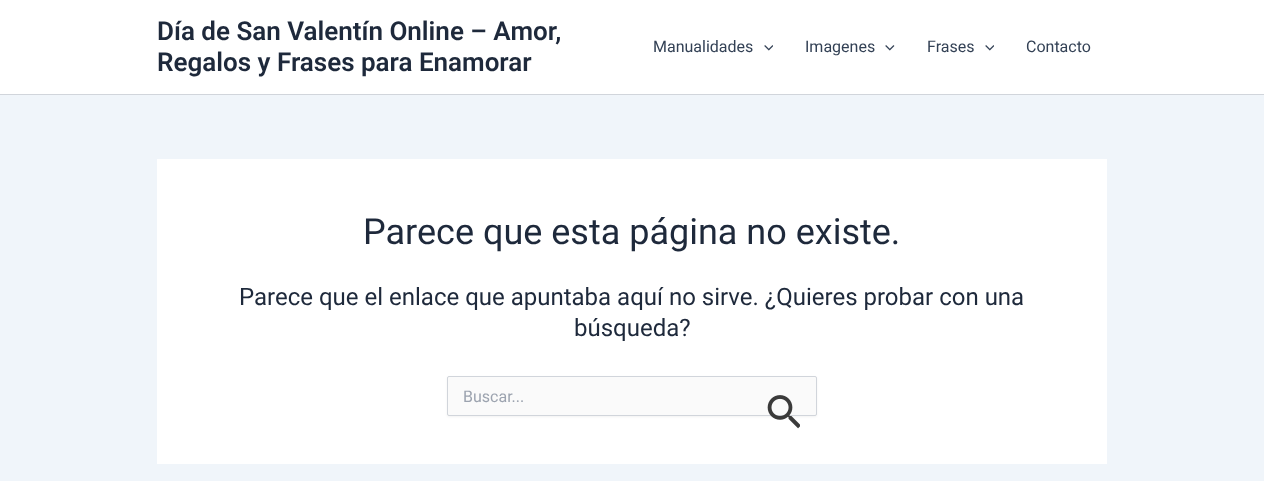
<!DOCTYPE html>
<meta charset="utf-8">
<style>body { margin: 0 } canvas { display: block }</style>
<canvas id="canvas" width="1264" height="481"></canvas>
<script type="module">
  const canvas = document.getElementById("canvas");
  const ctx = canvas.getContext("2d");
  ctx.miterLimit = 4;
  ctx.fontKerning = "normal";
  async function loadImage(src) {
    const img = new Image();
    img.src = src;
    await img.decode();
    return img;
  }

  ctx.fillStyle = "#f0f5fa";
  ctx.fillRect(0, 0, 1264, 481);
  ctx.fillStyle = "#ffffff";
  ctx.fillRect(0, 0, 1264, 94);
  ctx.fillStyle = "#d1d5db";
  ctx.fillRect(0, 94, 1264, 1);
  ctx.font = "600 26px Roboto";
  ctx.fillStyle = "#1e293b";
  ctx.fillText("Día de San Valentín Online – Amor,", 157, 40);
  ctx.fillText("Regalos y Frases para Enamorar", 157, 71);
  ctx.font = "16px Roboto";
  ctx.fillStyle = "#334155";
  ctx.fillText("Manualidades", 653, 52);
  ctx.drawImage(await loadImage("img1.png"), 764, 45, 9, 6);
  ctx.fillText("Imagenes", 805, 52);
  ctx.drawImage(await loadImage("img2.png"), 885, 45, 10, 6);
  ctx.fillText("Frases", 927, 52);
  ctx.drawImage(await loadImage("img1.png"), 985, 45, 9, 6);
  ctx.fillText("Contacto", 1026, 52);
  ctx.fillStyle = "#ffffff";
  ctx.fillRect(157, 159, 950, 305);
  ctx.font = "36px Roboto";
  ctx.fillStyle = "#1e293b";
  ctx.fillText("Parece que esta página no existe.", 363, 244);
  ctx.font = "24px Roboto";
  ctx.fillText("Parece que el enlace que apuntaba aquí no sirve. ¿Quieres probar con una", 239, 305);
  ctx.fillText("búsqueda?", 574, 336);
  ctx.fillStyle = "rgba(0, 0, 0, 0.05)";
  ctx.filter = "blur(1px)";
  ctx.beginPath();
  ctx.roundRect(447, 377, 370, 40, 2);
  ctx.fill();
  ctx.filter = "none";
  ctx.fillStyle = "#fafafa";
  ctx.beginPath();
  ctx.roundRect(447.5, 376.5, 369, 39, 1.5);
  ctx.fill();
  ctx.strokeStyle = "#d1d5db";
  ctx.stroke();
  ctx.font = "16px Roboto";
  ctx.fillStyle = "#9ca3af";
  ctx.fillText("Buscar...", 463, 402);
  ctx.drawImage(await loadImage("img3.png"), 767, 395, 33, 34);
</script>
